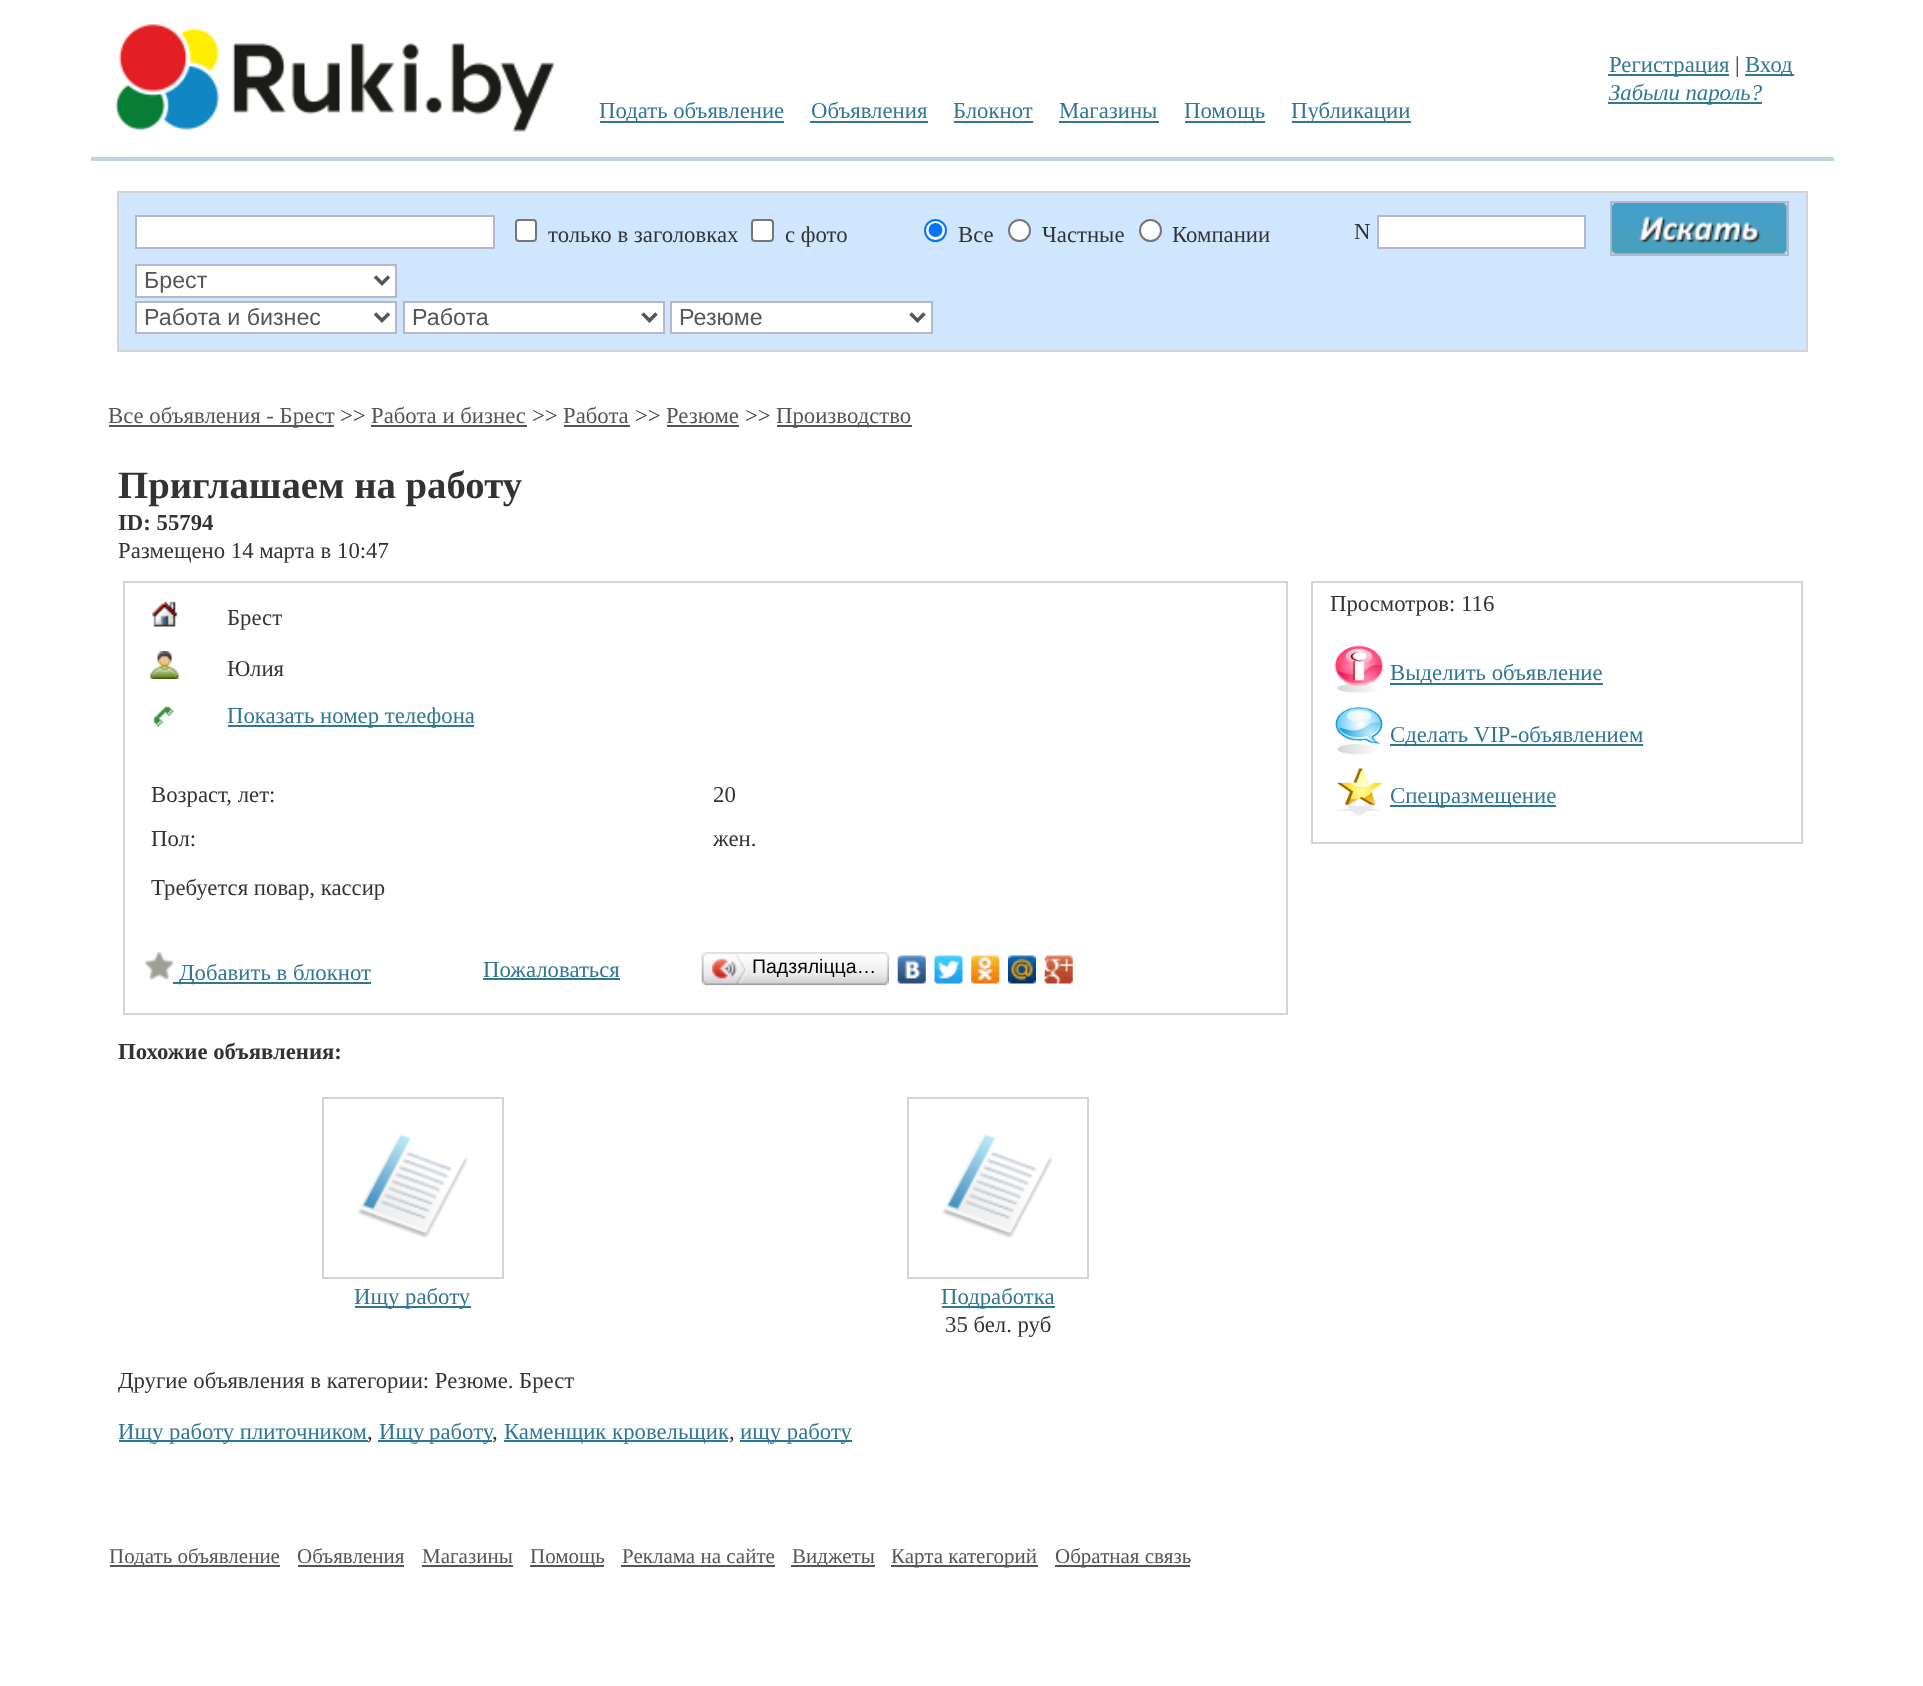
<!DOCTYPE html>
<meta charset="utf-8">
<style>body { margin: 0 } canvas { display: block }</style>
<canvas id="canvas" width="1923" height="1686"></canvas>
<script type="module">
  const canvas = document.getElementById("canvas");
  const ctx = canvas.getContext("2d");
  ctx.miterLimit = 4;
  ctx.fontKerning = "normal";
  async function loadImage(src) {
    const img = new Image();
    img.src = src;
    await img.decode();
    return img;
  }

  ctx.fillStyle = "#ffffff";
  ctx.fillRect(0, 0, 1923, 1686);
  ctx.drawImage(await loadImage("img1.png"), 115, 24, 440, 108);
  ctx.fillStyle = "#307792";
  ctx.fillRect(1608, 74, 121, 2);
  ctx.font = "22.75px Liberation Serif";
  ctx.fillText("Регистрация", 1609, 72);
  ctx.fillStyle = "#333333";
  ctx.fillText("|", 1735, 72);
  ctx.fillStyle = "#307792";
  ctx.fillRect(1745, 74, 49, 2);
  ctx.fillText("Вход", 1745, 72);
  ctx.fillRect(1608, 102, 154, 2);
  ctx.font = "italic 22.75px Liberation Serif";
  ctx.fillText("Забыли пароль?", 1609, 100);
  ctx.fillRect(600, 121, 184, 2);
  ctx.font = "22.75px Liberation Serif";
  ctx.fillText("Подать объявление", 599, 118);
  ctx.fillText("Объявления", 811, 118);
  ctx.fillRect(810, 121, 118, 2);
  ctx.fillText("Блокнот", 953, 118);
  ctx.fillRect(954, 121, 79, 2);
  ctx.fillText("Магазины", 1059, 118);
  ctx.fillRect(1059, 121, 100, 2);
  ctx.fillRect(1185, 121, 80, 2);
  ctx.fillText("Помощь", 1184, 118);
  ctx.fillRect(1292, 121, 119, 2);
  ctx.fillText("Публикации", 1291, 118);
  ctx.fillStyle = "#bdd4e2";
  ctx.fillRect(91, 157, 1743, 4);
  ctx.fillStyle = "#cfe6fe";
  ctx.beginPath();
  ctx.rect(118, 192, 1689, 159);
  ctx.fill();
  ctx.strokeStyle = "#d4d4d4";
  ctx.lineWidth = 2;
  ctx.stroke();
  ctx.fillStyle = "#ffffff";
  ctx.beginPath();
  ctx.rect(136, 216, 358, 32);
  ctx.fill();
  ctx.strokeStyle = "#b5b8c8";
  ctx.stroke();
  ctx.beginPath();
  ctx.roundRect(516, 220, 20, 21, 3);
  ctx.fill();
  ctx.strokeStyle = "#767676";
  ctx.stroke();
  ctx.fillStyle = "#333333";
  ctx.fillText("только в заголовках", 548, 242);
  ctx.fillStyle = "#ffffff";
  ctx.beginPath();
  ctx.roundRect(752, 220, 21, 21, 3);
  ctx.fill();
  ctx.stroke();
  ctx.fillStyle = "#333333";
  ctx.fillText("с фото", 785, 242);
  ctx.fillStyle = "#ffffff";
  ctx.beginPath();
  ctx.arc(935.5, 230.5, 10.5, 0, Math.PI * 2);
  ctx.fill();
  ctx.strokeStyle = "#0075ff";
  ctx.stroke();
  ctx.fillStyle = "#0075ff";
  ctx.beginPath();
  ctx.arc(935.5, 230, 7, 0, Math.PI * 2);
  ctx.fill();
  ctx.fillStyle = "#333333";
  ctx.fillText("Все", 958, 242);
  ctx.fillStyle = "#ffffff";
  ctx.beginPath();
  ctx.arc(1019.5, 230.5, 10.5, 0, Math.PI * 2);
  ctx.fill();
  ctx.strokeStyle = "#767676";
  ctx.stroke();
  ctx.fillStyle = "#333333";
  ctx.fillText("Частные", 1042, 242);
  ctx.fillStyle = "#ffffff";
  ctx.beginPath();
  ctx.arc(1150.5, 230.5, 10.5, 0, Math.PI * 2);
  ctx.fill();
  ctx.stroke();
  ctx.fillStyle = "#333333";
  ctx.fillText("Компании", 1172, 242);
  ctx.fillText("N", 1354, 239);
  ctx.fillStyle = "#ffffff";
  ctx.beginPath();
  ctx.rect(1378, 216, 207, 32);
  ctx.fill();
  ctx.strokeStyle = "#b5b8c8";
  ctx.stroke();
  ctx.beginPath();
  ctx.rect(1611, 202, 177, 53);
  ctx.fill();
  ctx.stroke();
  ctx.drawImage(await loadImage("img2.png"), 1611, 203, 176, 51);
  ctx.beginPath();
  ctx.rect(136, 265, 260, 32);
  ctx.fill();
  ctx.stroke();
  ctx.beginPath();
  ctx.moveTo(375, 276.5);
  ctx.lineTo(382, 283.5);
  ctx.lineTo(389, 276.5);
  ctx.strokeStyle = "#555555";
  ctx.lineWidth = 3.5;
  ctx.stroke();
  ctx.font = "23.25px Liberation Sans";
  ctx.fillStyle = "#555555";
  ctx.fillText("Брест", 144, 288);
  ctx.fillStyle = "#ffffff";
  ctx.beginPath();
  ctx.rect(136, 302, 260, 31);
  ctx.fill();
  ctx.strokeStyle = "#b5b8c8";
  ctx.lineWidth = 2;
  ctx.stroke();
  ctx.beginPath();
  ctx.moveTo(375, 313.5);
  ctx.lineTo(382, 320.5);
  ctx.lineTo(389, 313.5);
  ctx.strokeStyle = "#555555";
  ctx.lineWidth = 3.5;
  ctx.stroke();
  ctx.fillStyle = "#555555";
  ctx.fillText("Работа и бизнес", 144, 325);
  ctx.fillStyle = "#ffffff";
  ctx.beginPath();
  ctx.rect(404, 302, 260, 31);
  ctx.fill();
  ctx.strokeStyle = "#b5b8c8";
  ctx.lineWidth = 2;
  ctx.stroke();
  ctx.beginPath();
  ctx.moveTo(642.5, 313.5);
  ctx.lineTo(649.5, 320.5);
  ctx.lineTo(656.5, 313.5);
  ctx.strokeStyle = "#555555";
  ctx.lineWidth = 3.5;
  ctx.stroke();
  ctx.fillStyle = "#555555";
  ctx.fillText("Работа", 412, 325);
  ctx.fillStyle = "#ffffff";
  ctx.beginPath();
  ctx.rect(671, 302, 261, 31);
  ctx.fill();
  ctx.strokeStyle = "#b5b8c8";
  ctx.lineWidth = 2;
  ctx.stroke();
  ctx.beginPath();
  ctx.moveTo(910.5, 313.5);
  ctx.lineTo(917.5, 320.5);
  ctx.lineTo(924.5, 313.5);
  ctx.strokeStyle = "#555555";
  ctx.lineWidth = 3.5;
  ctx.stroke();
  ctx.fillStyle = "#555555";
  ctx.fillText("Резюме", 679, 325);
  ctx.fillRect(109, 425, 225, 2);
  ctx.font = "22.75px Liberation Serif";
  ctx.fillText("Все объявления - Брест", 108, 423);
  ctx.fillStyle = "#333333";
  ctx.fillText(">>", 340, 423);
  ctx.fillStyle = "#555555";
  ctx.fillText("Работа и бизнес", 371, 423);
  ctx.fillRect(371, 425, 156, 2);
  ctx.fillStyle = "#333333";
  ctx.fillText(">>", 532, 423);
  ctx.fillStyle = "#555555";
  ctx.fillText("Работа", 563, 423);
  ctx.fillRect(564, 425, 66, 2);
  ctx.fillStyle = "#333333";
  ctx.fillText(">>", 635, 423);
  ctx.fillStyle = "#555555";
  ctx.fillText("Резюме", 666, 423);
  ctx.fillRect(667, 425, 72, 2);
  ctx.fillStyle = "#333333";
  ctx.fillText(">>", 745, 423);
  ctx.fillStyle = "#555555";
  ctx.fillRect(777, 425, 135, 2);
  ctx.fillText("Производство", 776, 423);
  ctx.font = "bold 38.75px Liberation Serif";
  ctx.fillStyle = "#333333";
  ctx.fillText("Приглашаем на работу", 118, 498);
  ctx.font = "bold 22.75px Liberation Serif";
  ctx.fillText("ID: 55794", 118, 530);
  ctx.font = "22.75px Liberation Serif";
  ctx.fillText("Размещено 14 марта в 10:47", 118, 558);
  ctx.strokeStyle = "#d4d4d4";
  ctx.lineWidth = 2;
  ctx.strokeRect(124, 582, 1163, 432);
  ctx.drawImage(await loadImage("img3.png"), 151, 601, 27, 26);
  ctx.fillText("Брест", 227, 625);
  ctx.drawImage(await loadImage("img4.png"), 150, 651, 29, 28);
  ctx.fillText("Юлия", 227, 676);
  ctx.drawImage(await loadImage("img5.png"), 153, 706, 21, 21);
  ctx.fillStyle = "#307792";
  ctx.fillRect(228, 725, 246, 2);
  ctx.fillText("Показать номер телефона", 227, 723);
  ctx.fillStyle = "#333333";
  ctx.fillText("Возраст, лет:", 151, 802);
  ctx.fillText("20", 713, 802);
  ctx.fillText("Пол:", 151, 846);
  ctx.fillText("жен.", 713, 846);
  ctx.fillText("Требуется повар, кассир", 151, 895);
  ctx.drawImage(await loadImage("img6.png"), 145, 952, 29, 28);
  ctx.fillStyle = "#307792";
  ctx.fillRect(173, 982, 198, 2);
  ctx.fillText("Добавить в блокнот", 179, 980);
  ctx.fillText("Пожаловаться", 483, 977);
  ctx.fillRect(483, 978, 137, 2);
  ctx.drawImage(await loadImage("img7.png"), 707, 952, 177, 34);
  ctx.drawImage(await loadImage("img8.png"), 701, 952, 6, 34);
  ctx.drawImage(await loadImage("img9.png"), 712, 954, 35, 30);
  ctx.font = "19.5px Liberation Sans";
  ctx.fillStyle = "#000000";
  ctx.fillText("Падзяліцца…", 752, 973);
  ctx.drawImage(await loadImage("img10.png"), 883, 952, 6, 34);
  ctx.drawImage(await loadImage("img11.png"), 897, 955, 29, 29);
  ctx.drawImage(await loadImage("img12.png"), 934, 955, 29, 29);
  ctx.drawImage(await loadImage("img13.png"), 971, 955, 29, 29);
  ctx.drawImage(await loadImage("img14.png"), 1008, 955, 28, 29);
  ctx.drawImage(await loadImage("img15.png"), 1044, 955, 29, 29);
  ctx.font = "bold 22.75px Liberation Serif";
  ctx.fillStyle = "#333333";
  ctx.fillText("Похожие объявления:", 118, 1059);
  ctx.strokeRect(323, 1098, 180, 180);
  ctx.drawImage(await loadImage("img16.png"), 357, 1133, 111, 105);
  ctx.fillStyle = "#307792";
  ctx.fillRect(355, 1306, 116, 2);
  ctx.font = "22.75px Liberation Serif";
  ctx.fillText("Ищу работу", 354, 1304);
  ctx.strokeRect(908, 1098, 180, 180);
  ctx.drawImage(await loadImage("img17.png"), 942, 1133, 111, 105);
  ctx.fillRect(942, 1306, 113, 2);
  ctx.fillText("Подработка", 941, 1304);
  ctx.fillStyle = "#333333";
  ctx.fillText("35 бел. руб", 945, 1332);
  ctx.fillText("Другие объявления в категории: Резюме. Брест", 118, 1388);
  ctx.fillStyle = "#307792";
  ctx.fillRect(119, 1440, 249, 2);
  ctx.fillText("Ищу работу плиточником", 118, 1439);
  ctx.fillStyle = "#333333";
  ctx.fillText(",", 367, 1439);
  ctx.fillStyle = "#307792";
  ctx.fillRect(378, 1440, 114, 2);
  ctx.wordSpacing = "-1px";
  ctx.fillText("Ищу работу", 379, 1439);
  ctx.wordSpacing = "0px";
  ctx.fillStyle = "#333333";
  ctx.fillText(",", 492, 1439);
  ctx.fillStyle = "#307792";
  ctx.fillRect(504, 1440, 224, 2);
  ctx.fillText("Каменщик кровельщик", 504, 1439);
  ctx.fillStyle = "#333333";
  ctx.fillText(",", 729, 1439);
  ctx.fillStyle = "#307792";
  ctx.fillRect(740, 1440, 112, 2);
  ctx.fillText("ищу работу", 740, 1439);
  ctx.strokeRect(1312, 582, 490, 261);
  ctx.fillStyle = "#333333";
  ctx.fillText("Просмотров: 116", 1330, 611);
  ctx.drawImage(await loadImage("img18.png"), 1335, 645, 48, 48);
  ctx.fillStyle = "#307792";
  ctx.fillRect(1390, 683, 213, 2);
  ctx.fillText("Выделить объявление", 1390, 680);
  ctx.drawImage(await loadImage("img19.png"), 1335, 707, 48, 48);
  ctx.fillRect(1390, 744, 253, 2);
  ctx.fillText("Сделать VIP-объявлением", 1390, 742);
  ctx.drawImage(await loadImage("img20.png"), 1336, 768, 47, 48);
  ctx.fillRect(1390, 805, 166, 2);
  ctx.fillText("Спецразмещение", 1390, 803);
  ctx.fillStyle = "#555555";
  ctx.fillRect(110, 1565, 170, 2);
  ctx.font = "21px Liberation Serif";
  ctx.fillText("Подать объявление", 109, 1563);
  ctx.fillText("Объявления", 297, 1563);
  ctx.fillRect(298, 1565, 106, 2);
  ctx.fillText("Магазины", 422, 1563);
  ctx.fillRect(422, 1565, 91, 2);
  ctx.fillRect(530, 1565, 74, 2);
  ctx.fillText("Помощь", 530, 1563);
  ctx.fillText("Реклама на сайте", 622, 1563);
  ctx.fillRect(621, 1565, 154, 2);
  ctx.fillRect(791, 1565, 84, 2);
  ctx.fillText("Виджеты", 792, 1563);
  ctx.fillRect(891, 1565, 147, 2);
  ctx.fillText("Карта категорий", 891, 1563);
  ctx.fillRect(1055, 1565, 135, 2);
  ctx.fillText("Обратная связь", 1055, 1563);
</script>
